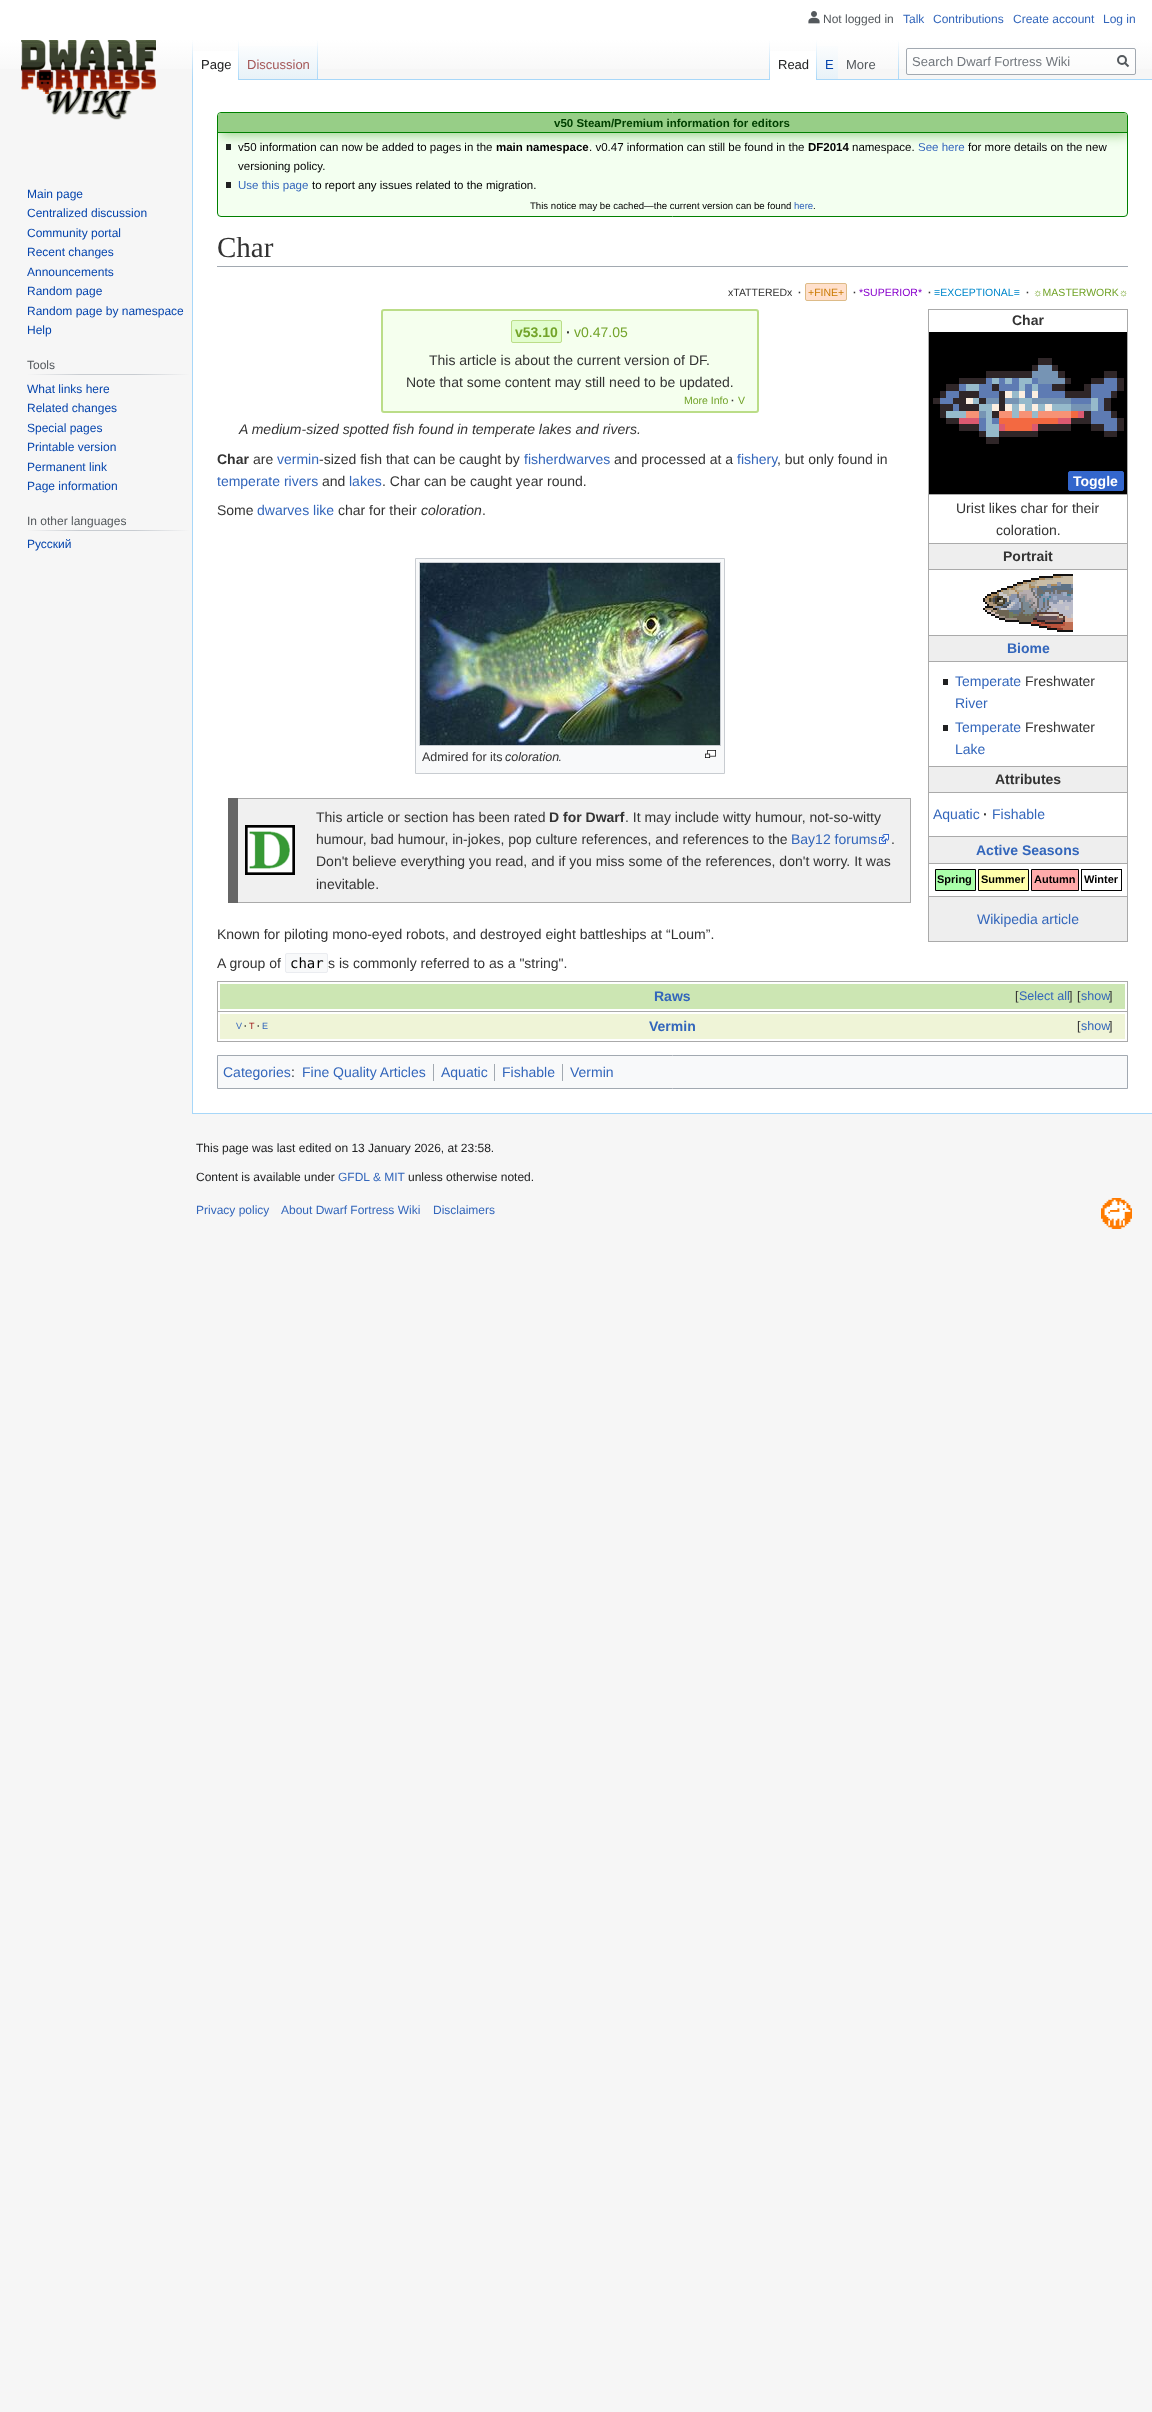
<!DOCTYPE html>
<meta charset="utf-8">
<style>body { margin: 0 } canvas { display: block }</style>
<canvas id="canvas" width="1152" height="2412"></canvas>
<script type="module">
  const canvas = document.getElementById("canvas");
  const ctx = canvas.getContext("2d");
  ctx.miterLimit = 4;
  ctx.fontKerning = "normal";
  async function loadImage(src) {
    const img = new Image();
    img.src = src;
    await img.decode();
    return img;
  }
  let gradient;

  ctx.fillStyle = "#f6f6f6";
  ctx.fillRect(0, 0, 1152, 2412);
  gradient = ctx.createLinearGradient(576, 0, 576, 80);
  gradient.addColorStop(0.5, "#ffffff");
  gradient.addColorStop(1, "#f6f6f6");
  ctx.fillStyle = gradient;
  ctx.fillRect(0, 0, 1152, 69);
  ctx.drawImage(await loadImage("img1.png"), 808, 11, 12, 13);
  ctx.font = "12px Liberation Sans";
  ctx.fillStyle = "#54595d";
  ctx.fillText("Not logged in", 823, 23);
  ctx.fillStyle = "#3366bb";
  ctx.fillText("Talk", 903, 23);
  ctx.fillText("Contributions", 933, 23);
  ctx.fillText("Create account", 1013, 23);
  ctx.fillText("Log in", 1103, 23);
  ctx.fillStyle = "#a7d7f9";
  ctx.fillRect(192, 1113, 960, 1);
  ctx.fillRect(192, 79, 1, 1035);
  gradient = ctx.createLinearGradient(193, 40, 193, 80);
  gradient.addColorStop(0, "rgba(167, 215, 249, 0)");
  gradient.addColorStop(1, "#a7d7f9");
  ctx.fillStyle = gradient;
  ctx.fillRect(192, 40, 1, 40);
  ctx.fillStyle = "#ffffff";
  ctx.fillRect(193, 51, 45, 29);
  gradient = ctx.createLinearGradient(239, 40, 239, 80);
  gradient.addColorStop(0, "#ffffff");
  gradient.addColorStop(1, "#a7d7f9");
  ctx.fillStyle = gradient;
  ctx.fillRect(238, 40, 1, 40);
  ctx.font = "13px Liberation Sans";
  ctx.fillStyle = "#202122";
  ctx.fillText("Page", 201, 69);
  gradient = ctx.createLinearGradient(279, 80, 279, 40);
  gradient.addColorStop(0, "#77c1f6");
  gradient.addColorStop(0.03, "#e8f2f8");
  gradient.addColorStop(1, "#ffffff");
  ctx.fillStyle = gradient;
  ctx.fillRect(239, 46, 79, 34);
  gradient = ctx.createLinearGradient(318, 40, 318, 80);
  gradient.addColorStop(0, "rgba(167, 215, 249, 0)");
  gradient.addColorStop(1, "#a7d7f9");
  ctx.fillStyle = gradient;
  ctx.fillRect(317, 40, 1, 40);
  ctx.fillStyle = "#a55858";
  ctx.fillText("Discussion", 247, 69);
  ctx.fillStyle = "#a7d7f9";
  ctx.fillRect(318, 79, 834, 1);
  gradient = ctx.createLinearGradient(770, 40, 770, 80);
  gradient.addColorStop(0, "rgba(167, 215, 249, 0)");
  gradient.addColorStop(1, "#a7d7f9");
  ctx.fillStyle = gradient;
  ctx.fillRect(769, 40, 1, 40);
  ctx.fillStyle = "#ffffff";
  ctx.fillRect(770, 51, 46, 29);
  gradient = ctx.createLinearGradient(817, 40, 817, 80);
  gradient.addColorStop(0, "#ffffff");
  gradient.addColorStop(1, "#a7d7f9");
  ctx.fillStyle = gradient;
  ctx.fillRect(816, 40, 1, 40);
  ctx.fillStyle = "#202122";
  ctx.fillText("Read", 778, 69);
  gradient = ctx.createLinearGradient(828, 80, 828, 40);
  gradient.addColorStop(0, "#77c1f6");
  gradient.addColorStop(0.03, "#e8f2f8");
  gradient.addColorStop(1, "#ffffff");
  ctx.fillStyle = gradient;
  ctx.fillRect(817, 46, 21, 33);
  ctx.fillStyle = "#0645ad";
  ctx.fillText("E", 825, 69);
  gradient = ctx.createLinearGradient(899, 40, 899, 80);
  gradient.addColorStop(0, "rgba(167, 215, 249, 0)");
  gradient.addColorStop(1, "#a7d7f9");
  ctx.fillStyle = gradient;
  ctx.fillRect(898, 40, 1, 40);
  ctx.fillStyle = "#54595d";
  ctx.fillText("More", 846, 69);
  ctx.fillStyle = "rgba(255, 255, 255, 0.5)";
  ctx.beginPath();
  ctx.roundRect(906.5, 48.5, 229, 26, 1.5);
  ctx.fill();
  ctx.strokeStyle = "#a2a9b1";
  ctx.stroke();
  ctx.fillStyle = "#72777d";
  ctx.fillText("Search Dwarf Fortress Wiki", 912, 66);
  ctx.beginPath();
  ctx.moveTo(1128.5, 66.5);
  ctx.lineTo(1124.5, 62.5);
  ctx.strokeStyle = "#54595d";
  ctx.lineWidth = 2;
  ctx.stroke();
  ctx.beginPath();
  ctx.arc(1122, 60, 4, 0, Math.PI * 2);
  ctx.stroke();
  ctx.drawImage(await loadImage("img2.png"), 21, 40, 135, 80);
  ctx.font = "12px Liberation Sans";
  ctx.fillStyle = "#0645ad";
  ctx.fillText("Main page", 27, 198);
  ctx.fillText("Centralized discussion", 27, 217);
  ctx.fillText("Community portal", 27, 237);
  ctx.fillText("Recent changes", 27, 256);
  ctx.fillText("Announcements", 27, 276);
  ctx.fillText("Random page", 27, 295);
  ctx.fillText("Random page by namespace", 27, 315);
  ctx.fillText("Help", 27, 334);
  gradient = ctx.createLinearGradient(27, 375, 190, 375);
  gradient.addColorStop(0, "#f6f6f6");
  gradient.addColorStop(0.33, "#c8ccd1");
  gradient.addColorStop(0.66, "#c8ccd1");
  gradient.addColorStop(1, "#f6f6f6");
  ctx.fillStyle = gradient;
  ctx.fillRect(27, 374, 163, 1);
  ctx.fillStyle = "#54595d";
  ctx.fillText("Tools", 27, 369);
  ctx.fillStyle = "#0645ad";
  ctx.fillText("What links here", 27, 393);
  ctx.fillText("Related changes", 27, 412);
  ctx.fillText("Special pages", 27, 432);
  ctx.fillText("Printable version", 27, 451);
  ctx.fillText("Permanent link", 27, 471);
  ctx.fillText("Page information", 27, 490);
  gradient = ctx.createLinearGradient(27, 531, 190, 531);
  gradient.addColorStop(0, "#f6f6f6");
  gradient.addColorStop(0.33, "#c8ccd1");
  gradient.addColorStop(0.66, "#c8ccd1");
  gradient.addColorStop(1, "#f6f6f6");
  ctx.fillStyle = gradient;
  ctx.fillRect(27, 530, 163, 1);
  ctx.fillStyle = "#54595d";
  ctx.fillText("In other languages", 27, 525);
  ctx.fillStyle = "#0645ad";
  ctx.fillText("Русский", 27, 548);
  ctx.fillStyle = "#ffffff";
  ctx.fillRect(193, 80, 959, 1033);
  ctx.fillStyle = "#f3fff0";
  ctx.beginPath();
  ctx.roundRect(217.5, 112.5, 910, 104, 3.5);
  ctx.fill();
  ctx.strokeStyle = "#008000";
  ctx.lineWidth = 1;
  ctx.stroke();
  ctx.save();
  ctx.beginPath();
  ctx.roundRect(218, 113, 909, 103, 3);
  ctx.clip();
  ctx.fillStyle = "#97ce87";
  ctx.filter = "blur(6px)";
  ctx.beginPath();
  ctx.rect(220, 115, 909, 20);
  ctx.fill();
  ctx.filter = "none";
  ctx.restore();
  ctx.fillStyle = "#97ce87";
  ctx.beginPath();
  ctx.roundRect(218, 113, 909, 20, [3, 3, 0, 0]);
  ctx.fill();
  ctx.fillStyle = "#008000";
  ctx.fillRect(218, 132, 909, 1);
  ctx.font = "bold 11.5px Liberation Sans";
  ctx.fillStyle = "#004000";
  ctx.fillText("v50 Steam/Premium information for editors", 554, 127);
  ctx.fillStyle = "#202122";
  ctx.fillRect(226, 144, 5, 6);
  ctx.font = "11.5px Liberation Sans";
  ctx.fillStyle = "#000000";
  ctx.fillText("v50 information can now be added to pages in the", 238, 151);
  ctx.font = "bold 11.5px Liberation Sans";
  ctx.fillText("main namespace", 496, 151);
  ctx.font = "11.5px Liberation Sans";
  ctx.fillText(". v0.47 information can still be found in the", 589, 151);
  ctx.font = "bold 11.5px Liberation Sans";
  ctx.fillText("DF2014", 808, 151);
  ctx.font = "11.5px Liberation Sans";
  ctx.fillText("namespace.", 852, 151);
  ctx.fillStyle = "#3366bb";
  ctx.fillText("See here", 918, 151);
  ctx.fillStyle = "#000000";
  ctx.fillText("for more details on the new", 968, 151);
  ctx.fillText("versioning policy.", 238, 170);
  ctx.fillStyle = "#202122";
  ctx.fillRect(226, 182, 5, 6);
  ctx.fillStyle = "#3366bb";
  ctx.fillText("Use this page", 238, 189);
  ctx.fillStyle = "#000000";
  ctx.fillText("to report any issues related to the migration.", 312, 189);
  ctx.font = "9.6px Liberation Sans";
  ctx.fillText("This notice may be cached—the current version can be found", 530, 209);
  ctx.fillStyle = "#3366bb";
  ctx.fillText("here", 794, 209);
  ctx.fillStyle = "#000000";
  ctx.fillText(".", 813, 209);
  ctx.fillStyle = "#a2a9b1";
  ctx.fillRect(217, 266, 911, 1);
  ctx.font = "29px Liberation Serif";
  ctx.fillStyle = "#333333";
  ctx.fillText("Char", 217, 257);
  ctx.font = "10.5px Liberation Sans";
  ctx.fillText("xTATTEREDx", 728, 296);
  ctx.font = "bold 10.5px Liberation Sans";
  ctx.fillText("·", 798, 296);
  ctx.fillStyle = "#ffe0cc";
  ctx.beginPath();
  ctx.roundRect(805.5, 283.5, 41, 17, 1.5);
  ctx.fill();
  ctx.strokeStyle = "#ddbb88";
  ctx.stroke();
  ctx.font = "10.5px Liberation Sans";
  ctx.fillStyle = "#ca7a02";
  ctx.fillText("+FINE+", 808, 296);
  ctx.font = "bold 10.5px Liberation Sans";
  ctx.fillStyle = "#333333";
  ctx.fillText("·", 853, 296);
  ctx.font = "10.5px Liberation Sans";
  ctx.fillStyle = "#8800cc";
  ctx.fillText("*SUPERIOR*", 859, 296);
  ctx.font = "bold 10.5px Liberation Sans";
  ctx.fillStyle = "#333333";
  ctx.fillText("·", 928, 296);
  ctx.font = "10.5px Liberation Sans";
  ctx.fillStyle = "#0088cc";
  ctx.fillText("≡EXCEPTIONAL≡", 934, 296);
  ctx.font = "bold 10.5px Liberation Sans";
  ctx.fillStyle = "#333333";
  ctx.fillText("·", 1026, 296);
  ctx.font = "10.5px Liberation Sans";
  ctx.fillStyle = "#72a329";
  ctx.fillText("☼MASTERWORK☼", 1033, 296);
  ctx.fillStyle = "#f5ffee";
  ctx.beginPath();
  ctx.roundRect(382, 310, 376, 102, 2);
  ctx.fill();
  ctx.strokeStyle = "#bbdd88";
  ctx.lineWidth = 2;
  ctx.stroke();
  ctx.fillStyle = "#e2fdce";
  ctx.beginPath();
  ctx.roundRect(511.5, 320.5, 50, 22, 1.5);
  ctx.fill();
  ctx.lineWidth = 1;
  ctx.stroke();
  ctx.font = "bold 14px Liberation Sans";
  ctx.fillStyle = "#72a329";
  ctx.fillText("v53.10", 515, 337);
  ctx.fillStyle = "#333333";
  ctx.fillText("·", 566, 337);
  ctx.font = "14px Liberation Sans";
  ctx.fillStyle = "#72a329";
  ctx.fillText("v0.47.05", 574, 337);
  ctx.fillStyle = "#333333";
  ctx.fillText("This article is about the current version of DF.", 429, 365);
  ctx.fillText("Note that some content may still need to be updated.", 406, 387);
  ctx.font = "10.5px Liberation Sans";
  ctx.fillStyle = "#72a329";
  ctx.fillText("More Info", 684, 404);
  ctx.font = "bold 10.5px Liberation Sans";
  ctx.fillStyle = "#333333";
  ctx.fillText("·", 731, 404);
  ctx.font = "10.5px Liberation Sans";
  ctx.fillStyle = "#72a329";
  ctx.fillText("V", 738, 404);
  ctx.strokeStyle = "#aaaaaa";
  ctx.strokeRect(928.5, 309.5, 199, 632);
  ctx.font = "bold 14px Liberation Sans";
  ctx.fillStyle = "#333333";
  ctx.fillText("Char", 1012, 325);
  ctx.fillStyle = "#000000";
  ctx.fillRect(929, 332, 198, 162);
  ctx.drawImage(await loadImage("img3.png"), 933, 358, 191, 86);
  ctx.fillStyle = "#3366cc";
  ctx.beginPath();
  ctx.roundRect(1068.5, 471.5, 55, 19, 1.5);
  ctx.fill();
  ctx.strokeStyle = "#3366cc";
  ctx.stroke();
  ctx.fillStyle = "#ffffff";
  ctx.fillText("Toggle", 1073, 486);
  ctx.fillStyle = "#aaaaaa";
  ctx.fillRect(929, 494, 198, 1);
  ctx.font = "14px Liberation Sans";
  ctx.fillStyle = "#333333";
  ctx.fillText("Urist likes char for their", 956, 513);
  ctx.fillText("coloration.", 996, 535);
  ctx.fillStyle = "#eeeeee";
  ctx.fillRect(929, 544, 198, 25);
  ctx.fillStyle = "#aaaaaa";
  ctx.fillRect(929, 543, 198, 1);
  ctx.fillRect(929, 569, 198, 1);
  ctx.font = "bold 14px Liberation Sans";
  ctx.fillStyle = "#333333";
  ctx.fillText("Portrait", 1003, 561);
  ctx.drawImage(await loadImage("img4.png"), 983, 574, 90, 58);
  ctx.fillStyle = "#eeeeee";
  ctx.fillRect(929, 636, 198, 25);
  ctx.fillStyle = "#aaaaaa";
  ctx.fillRect(929, 635, 198, 1);
  ctx.fillRect(929, 661, 198, 1);
  ctx.fillStyle = "#3366bb";
  ctx.fillText("Biome", 1007, 653);
  ctx.fillStyle = "#202122";
  ctx.fillRect(943, 679, 5, 6);
  ctx.font = "14px Liberation Sans";
  ctx.fillStyle = "#3366bb";
  ctx.fillText("Temperate", 955, 686);
  ctx.fillStyle = "#333333";
  ctx.fillText("Freshwater", 1025, 686);
  ctx.fillStyle = "#3366bb";
  ctx.fillText("River", 955, 708);
  ctx.fillStyle = "#202122";
  ctx.fillRect(943, 725, 5, 6);
  ctx.fillStyle = "#3366bb";
  ctx.fillText("Temperate", 955, 732);
  ctx.fillStyle = "#333333";
  ctx.fillText("Freshwater", 1025, 732);
  ctx.fillStyle = "#3366bb";
  ctx.fillText("Lake", 955, 754);
  ctx.fillStyle = "#eeeeee";
  ctx.fillRect(929, 767, 198, 25);
  ctx.fillStyle = "#aaaaaa";
  ctx.fillRect(929, 766, 198, 1);
  ctx.fillRect(929, 792, 198, 1);
  ctx.font = "bold 14px Liberation Sans";
  ctx.fillStyle = "#333333";
  ctx.fillText("Attributes", 995, 784);
  ctx.font = "14px Liberation Sans";
  ctx.fillStyle = "#3366bb";
  ctx.fillText("Aquatic", 933, 819);
  ctx.font = "bold 14px Liberation Sans";
  ctx.fillStyle = "#333333";
  ctx.fillText("·", 983, 819);
  ctx.font = "14px Liberation Sans";
  ctx.fillStyle = "#3366bb";
  ctx.fillText("Fishable", 992, 819);
  ctx.fillStyle = "#eeeeee";
  ctx.fillRect(929, 837, 198, 26);
  ctx.fillStyle = "#aaaaaa";
  ctx.fillRect(929, 836, 198, 1);
  ctx.fillRect(929, 863, 198, 1);
  ctx.font = "bold 14px Liberation Sans";
  ctx.fillStyle = "#3366bb";
  ctx.fillText("Active Seasons", 976, 855);
  ctx.fillStyle = "#aaffaa";
  ctx.beginPath();
  ctx.rect(935.5, 869.5, 40, 21);
  ctx.fill();
  ctx.strokeStyle = "#000000";
  ctx.stroke();
  ctx.font = "bold 11px Liberation Sans";
  ctx.fillStyle = "#000000";
  ctx.fillText("Spring", 937, 883);
  ctx.fillStyle = "#ffffaa";
  ctx.beginPath();
  ctx.rect(978.5, 869.5, 50, 21);
  ctx.fill();
  ctx.stroke();
  ctx.fillStyle = "#000000";
  ctx.fillText("Summer", 981, 883);
  ctx.fillStyle = "#ffaaaa";
  ctx.beginPath();
  ctx.rect(1031.5, 869.5, 47, 21);
  ctx.fill();
  ctx.stroke();
  ctx.fillStyle = "#000000";
  ctx.fillText("Autumn", 1034, 883);
  ctx.strokeRect(1081.5, 869.5, 40, 21);
  ctx.fillText("Winter", 1084, 883);
  ctx.fillStyle = "#eeeeee";
  ctx.fillRect(929, 897, 198, 44);
  ctx.fillStyle = "#aaaaaa";
  ctx.fillRect(929, 896, 198, 1);
  ctx.font = "14px Liberation Sans";
  ctx.fillStyle = "#3366bb";
  ctx.fillText("Wikipedia article", 977, 924);
  ctx.font = "italic 14px Liberation Sans";
  ctx.fillStyle = "#333333";
  ctx.fillText("A medium-sized spotted fish found in temperate lakes and rivers.", 239, 434);
  ctx.font = "bold 14px Liberation Sans";
  ctx.fillText("Char", 217, 464);
  ctx.font = "14px Liberation Sans";
  ctx.fillText("are", 253, 464);
  ctx.fillStyle = "#3366bb";
  ctx.fillText("vermin", 277, 464);
  ctx.fillStyle = "#333333";
  ctx.fillText("-sized fish that can be caught by", 319, 464);
  ctx.fillStyle = "#3366bb";
  ctx.fillText("fisherdwarves", 524, 464);
  ctx.fillStyle = "#333333";
  ctx.fillText("and processed at a", 614, 464);
  ctx.fillStyle = "#3366bb";
  ctx.fillText("fishery", 737, 464);
  ctx.fillStyle = "#333333";
  ctx.fillText(", but only found in", 777, 464);
  ctx.fillStyle = "#3366bb";
  ctx.fillText("temperate rivers", 217, 486);
  ctx.fillStyle = "#333333";
  ctx.fillText("and", 322, 486);
  ctx.fillStyle = "#3366bb";
  ctx.fillText("lakes", 349, 486);
  ctx.fillStyle = "#333333";
  ctx.fillText(". Char can be caught year round.", 382, 486);
  ctx.fillText("Some", 217, 515);
  ctx.fillStyle = "#3366bb";
  ctx.fillText("dwarves like", 257, 515);
  ctx.fillStyle = "#333333";
  ctx.fillText("char for their", 338, 515);
  ctx.font = "italic 14px Liberation Sans";
  ctx.fillText("coloration", 421, 515);
  ctx.font = "14px Liberation Sans";
  ctx.fillText(".", 482, 515);
  ctx.fillStyle = "#f8f9fa";
  ctx.beginPath();
  ctx.rect(415.5, 558.5, 309, 215);
  ctx.fill();
  ctx.strokeStyle = "#c8ccd1";
  ctx.stroke();
  ctx.strokeRect(419.5, 562.5, 301, 183);
  ctx.drawImage(await loadImage("img5.png"), 420, 563, 300, 182);
  ctx.font = "12.5px Liberation Sans";
  ctx.fillStyle = "#333333";
  ctx.fillText("Admired for its", 422, 761);
  ctx.font = "italic 12.5px Liberation Sans";
  ctx.fillText("coloration", 505, 761);
  ctx.font = "12.5px Liberation Sans";
  ctx.fillText(".", 558, 761);
  ctx.drawImage(await loadImage("img6.png"), 705, 750, 11, 8);
  ctx.fillStyle = "#f0f0f0";
  ctx.fillRect(238, 799, 672, 103);
  ctx.fillStyle = "#aaaaaa";
  ctx.fillRect(238, 798, 673, 1);
  ctx.fillRect(910, 798, 1, 105);
  ctx.fillRect(238, 902, 673, 1);
  ctx.fillStyle = "#666666";
  ctx.fillRect(228, 798, 10, 105);
  ctx.drawImage(await loadImage("img7.png"), 245, 825, 50, 50);
  ctx.font = "14px Liberation Sans";
  ctx.fillStyle = "#333333";
  ctx.fillText("This article or section has been rated", 316, 822);
  ctx.font = "bold 14px Liberation Sans";
  ctx.fillText("D for Dwarf", 549, 822);
  ctx.font = "14px Liberation Sans";
  ctx.fillText(". It may include witty humour, not-so-witty", 625, 822);
  ctx.fillText("humour, bad humour, in-jokes, pop culture references, and references to the", 316, 844);
  ctx.fillStyle = "#3366bb";
  ctx.fillText("Bay12 forums", 791, 844);
  ctx.drawImage(await loadImage("img8.png"), 879, 834, 10, 10);
  ctx.fillStyle = "#333333";
  ctx.fillText(".", 891, 844);
  ctx.fillText("Don't believe everything you read, and if you miss some of the references, don't worry. It was", 316, 866);
  ctx.fillText("inevitable.", 316, 889);
  ctx.fillText("Known for piloting mono-eyed robots, and destroyed eight battleships at “Loum”.", 217, 939);
  ctx.fillText("A group of", 217, 968);
  ctx.fillStyle = "#f8f9fa";
  ctx.beginPath();
  ctx.roundRect(285.5, 953.5, 42, 19, 1.5);
  ctx.fill();
  ctx.strokeStyle = "#eaecf0";
  ctx.stroke();
  ctx.font = "14px DejaVu Sans Mono";
  ctx.fillStyle = "#000000";
  ctx.fillText("char", 290, 968);
  ctx.font = "14px Liberation Sans";
  ctx.fillStyle = "#333333";
  ctx.fillText("s is commonly referred to as a \"string\".", 328, 968);
  ctx.strokeStyle = "#aaaaaa";
  ctx.strokeRect(217.5, 981.5, 910, 30);
  ctx.fillStyle = "#cce6b3";
  ctx.fillRect(220, 984, 905, 25);
  ctx.font = "bold 14px Liberation Sans";
  ctx.fillStyle = "#3366bb";
  ctx.fillText("Raws", 654, 1001);
  ctx.font = "12.5px Liberation Sans";
  ctx.fillStyle = "#333333";
  ctx.fillText("[", 1015, 1000);
  ctx.fillStyle = "#3366bb";
  ctx.fillText("Select all", 1019, 1000);
  ctx.fillStyle = "#333333";
  ctx.fillText("]", 1069, 1000);
  ctx.fillText("[", 1077, 1000);
  ctx.fillStyle = "#3366bb";
  ctx.fillText("show", 1081, 1000);
  ctx.fillStyle = "#333333";
  ctx.fillText("]", 1109, 1000);
  ctx.strokeRect(217.5, 1011.5, 910, 30);
  ctx.fillStyle = "#eff4d7";
  ctx.fillRect(220, 1014, 905, 25);
  ctx.font = "9px Liberation Sans";
  ctx.fillStyle = "#3366bb";
  ctx.fillText("V", 236, 1029);
  ctx.font = "bold 9px Liberation Sans";
  ctx.fillStyle = "#333333";
  ctx.fillText("·", 244, 1029);
  ctx.font = "9px Liberation Sans";
  ctx.fillStyle = "#9d1212";
  ctx.fillText("T", 249, 1029);
  ctx.font = "bold 9px Liberation Sans";
  ctx.fillStyle = "#333333";
  ctx.fillText("·", 257, 1029);
  ctx.font = "9px Liberation Sans";
  ctx.fillStyle = "#3366bb";
  ctx.fillText("E", 262, 1029);
  ctx.font = "bold 14px Liberation Sans";
  ctx.fillText("Vermin", 649, 1031);
  ctx.font = "12.5px Liberation Sans";
  ctx.fillStyle = "#333333";
  ctx.fillText("[", 1077, 1030);
  ctx.fillStyle = "#3366bb";
  ctx.fillText("show", 1081, 1030);
  ctx.fillStyle = "#333333";
  ctx.fillText("]", 1109, 1030);
  ctx.fillStyle = "#f8f9fa";
  ctx.beginPath();
  ctx.rect(217.5, 1055.5, 910, 33);
  ctx.fill();
  ctx.strokeStyle = "#a2a9b1";
  ctx.stroke();
  ctx.font = "14px Liberation Sans";
  ctx.fillStyle = "#3366bb";
  ctx.fillText("Categories", 223, 1077);
  ctx.fillStyle = "#333333";
  ctx.fillText(":", 291, 1077);
  ctx.fillStyle = "#3366bb";
  ctx.fillText("Fine Quality Articles", 302, 1077);
  ctx.fillStyle = "#a2a9b1";
  ctx.fillRect(433, 1064, 1, 17);
  ctx.fillStyle = "#3366bb";
  ctx.fillText("Aquatic", 441, 1077);
  ctx.fillStyle = "#a2a9b1";
  ctx.fillRect(494, 1064, 1, 17);
  ctx.fillStyle = "#3366bb";
  ctx.fillText("Fishable", 502, 1077);
  ctx.fillStyle = "#a2a9b1";
  ctx.fillRect(562, 1064, 1, 17);
  ctx.fillStyle = "#3366bb";
  ctx.fillText("Vermin", 570, 1077);
  ctx.font = "12px Liberation Sans";
  ctx.fillStyle = "#202122";
  ctx.fillText("This page was last edited on 13 January 2026, at 23:58.", 196, 1152);
  ctx.fillText("Content is available under", 196, 1181);
  ctx.fillStyle = "#3366bb";
  ctx.fillText("GFDL & MIT", 338, 1181);
  ctx.fillStyle = "#202122";
  ctx.fillText("unless otherwise noted.", 408, 1181);
  ctx.fillStyle = "#3366bb";
  ctx.fillText("Privacy policy", 196, 1214);
  ctx.fillText("About Dwarf Fortress Wiki", 281, 1214);
  ctx.fillText("Disclaimers", 433, 1214);
  ctx.drawImage(await loadImage("img9.png"), 1101, 1198, 31, 31);
</script>
